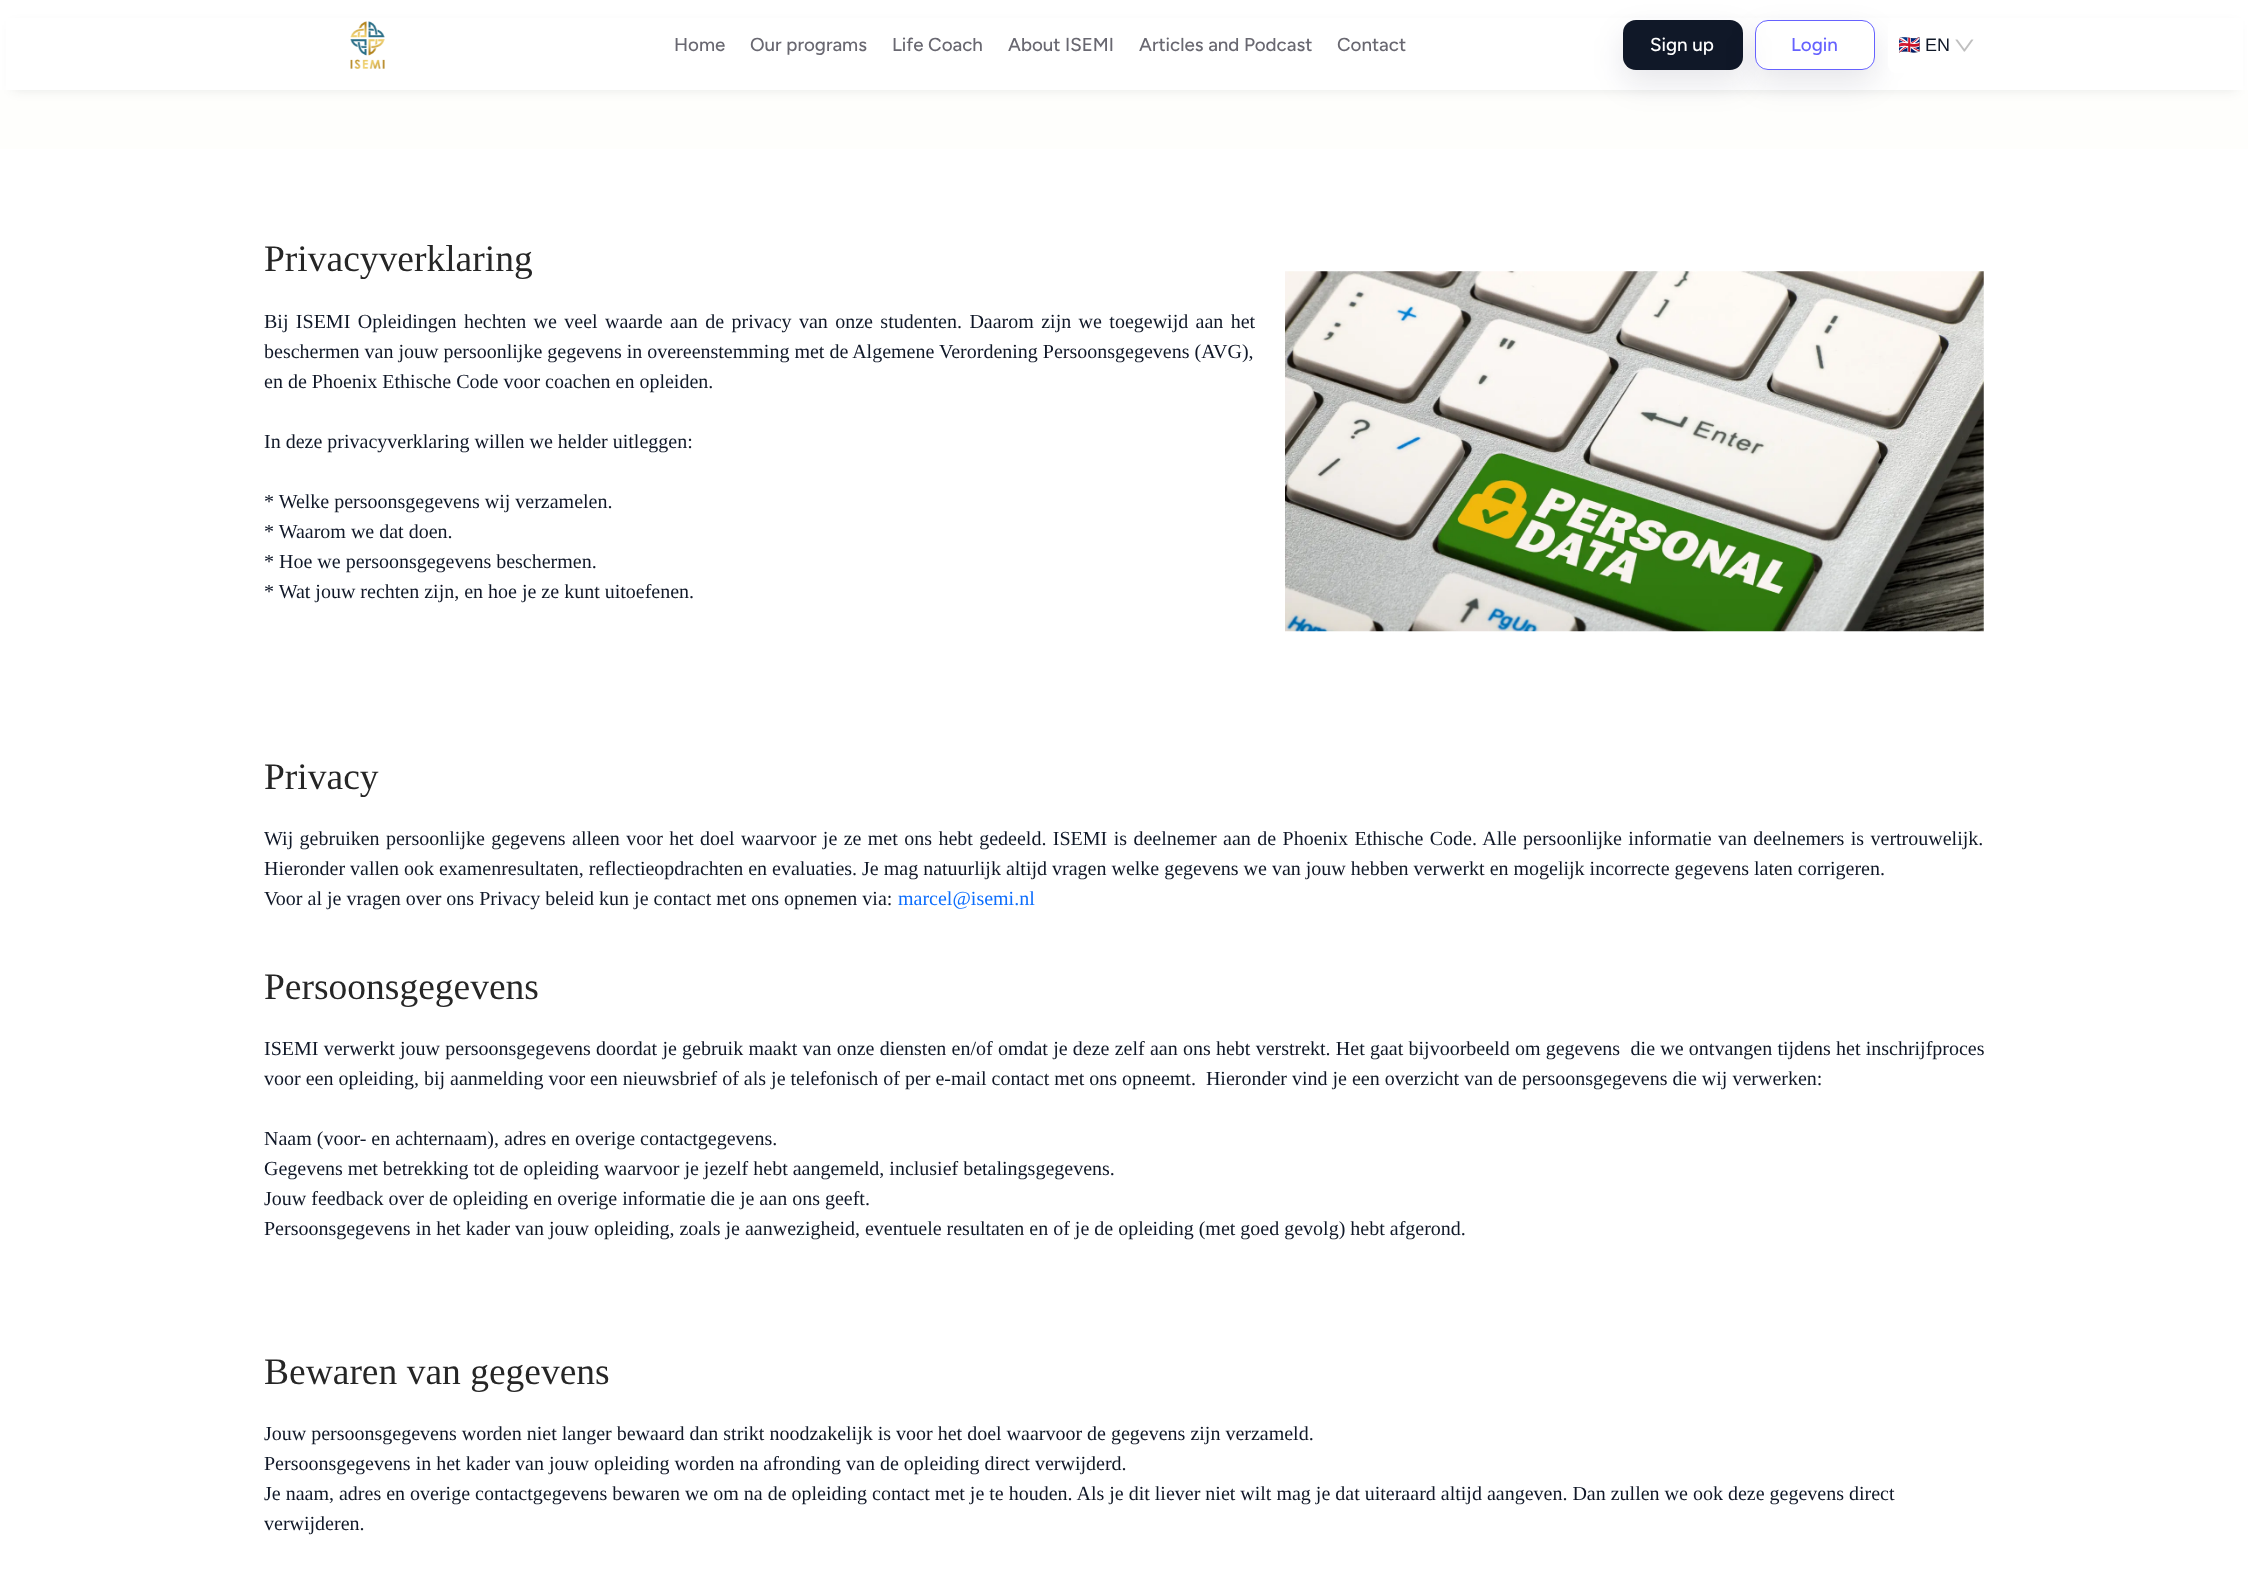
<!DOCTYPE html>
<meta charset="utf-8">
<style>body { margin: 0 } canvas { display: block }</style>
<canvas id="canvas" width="2248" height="1571"></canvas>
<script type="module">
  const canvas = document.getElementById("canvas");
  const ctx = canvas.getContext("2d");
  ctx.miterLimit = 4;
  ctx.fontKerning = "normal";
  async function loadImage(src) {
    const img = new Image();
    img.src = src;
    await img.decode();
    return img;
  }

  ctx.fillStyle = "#ffffff";
  ctx.fillRect(0, 0, 2248, 1571);
  ctx.fillStyle = "#fefefc";
  ctx.fillRect(0, 90, 2248, 59);
  ctx.fillStyle = "rgba(33, 35, 38, 0.1)";
  ctx.filter = "blur(6px)";
  ctx.beginPath();
  ctx.rect(13, 25, 2223, 65);
  ctx.fill();
  ctx.filter = "none";
  ctx.fillStyle = "#ffffff";
  ctx.fillRect(6, 18, 2237, 72);
  ctx.drawImage(await loadImage("img1.png"), 350, 21, 35, 48);
  ctx.font = "500 18.75px Figtree";
  ctx.fillStyle = "#696871";
  ctx.fillText("Home", 674, 51);
  ctx.fillText("Our programs", 750, 51);
  ctx.fillText("Life Coach", 892, 51);
  ctx.fillText("About ISEMI", 1008, 51);
  ctx.fillText("Articles and Podcast", 1139, 51);
  ctx.fillText("Contact", 1337, 51);
  ctx.fillStyle = "rgba(10, 10, 51, 0.1)";
  ctx.filter = "blur(15.5px)";
  ctx.beginPath();
  ctx.roundRect(1623, 33, 120, 50, 13);
  ctx.fill();
  ctx.filter = "none";
  ctx.fillStyle = "#101828";
  ctx.beginPath();
  ctx.roundRect(1623, 20, 120, 50, 13);
  ctx.fill();
  ctx.fillStyle = "#ffffff";
  ctx.fillText("Sign up", 1650, 51);
  ctx.save();
  ctx.beginPath();
  ctx.moveTo(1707, 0);
  ctx.lineTo(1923, 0);
  ctx.lineTo(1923, 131);
  ctx.lineTo(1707, 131);
  ctx.closePath();
  ctx.moveTo(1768, 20);
  ctx.lineTo(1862, 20);
  ctx.bezierCurveTo(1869, 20, 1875, 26, 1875, 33);
  ctx.lineTo(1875, 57);
  ctx.bezierCurveTo(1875, 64, 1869, 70, 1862, 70);
  ctx.lineTo(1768, 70);
  ctx.bezierCurveTo(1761, 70, 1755, 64, 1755, 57);
  ctx.lineTo(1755, 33);
  ctx.bezierCurveTo(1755, 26, 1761, 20, 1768, 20);
  ctx.closePath();
  ctx.clip("evenodd");
  ctx.fillStyle = "rgba(10, 10, 51, 0.1)";
  ctx.filter = "blur(15.5px)";
  ctx.beginPath();
  ctx.roundRect(1755, 33, 120, 50, 13);
  ctx.fill();
  ctx.filter = "none";
  ctx.restore();
  ctx.beginPath();
  ctx.roundRect(1755.5, 20.5, 119, 49, 12.5);
  ctx.strokeStyle = "#6662ff";
  ctx.stroke();
  ctx.fillStyle = "#6662ff";
  ctx.fillText("Login", 1791, 51);
  ctx.fillStyle = "#ffffff";
  ctx.beginPath();
  ctx.roundRect(1888, 18, 97, 55, 8);
  ctx.fill();
  ctx.save();
  ctx.beginPath();
  ctx.rect(1899, 19, 80, 52);
  ctx.clip();
  ctx.font = "18px Noto Color Emoji";
  ctx.fillStyle = "#101828";
  ctx.fillText("🇬🇧", 1898, 51);
  ctx.restore();
  ctx.font = "18px Liberation Sans";
  ctx.fillStyle = "#101828";
  ctx.fillText("EN", 1925, 51);
  ctx.drawImage(await loadImage("img2.png"), 1955, 39, 19, 13);
  ctx.font = "37.5px Liberation Serif";
  ctx.fillStyle = "#262626";
  ctx.fillText("Privacyverklaring", 264, 271);
  ctx.wordSpacing = "2.4px";
  ctx.font = "20px Liberation Serif";
  ctx.fillStyle = "#101828";
  ctx.fillText("Bij ISEMI Opleidingen hechten we veel waarde aan de privacy van onze studenten. Daarom zijn we toegewijd aan het", 264, 328);
  ctx.wordSpacing = "0px";
  ctx.fillText("beschermen van jouw persoonlijke gegevens in overeenstemming met de Algemene Verordening Persoonsgegevens (AVG),", 264, 358);
  ctx.fillText("en de Phoenix Ethische Code voor coachen en opleiden.", 264, 388);
  ctx.fillText("In deze privacyverklaring willen we helder uitleggen:", 264, 448);
  ctx.fillText("* Welke persoonsgegevens wij verzamelen.", 264, 508);
  ctx.fillText("* Waarom we dat doen.", 264, 538);
  ctx.fillText("* Hoe we persoonsgegevens beschermen.", 264, 568);
  ctx.fillText("* Wat jouw rechten zijn, en hoe je ze kunt uitoefenen.", 264, 598);
  ctx.drawImage(await loadImage("img3.png"), 1285, 271, 699, 361);
  ctx.font = "37.5px Liberation Serif";
  ctx.fillStyle = "#262626";
  ctx.fillText("Privacy", 264, 789);
  ctx.wordSpacing = "1.4px";
  ctx.font = "20px Liberation Serif";
  ctx.fillStyle = "#101828";
  ctx.fillText("Wij gebruiken persoonlijke gegevens alleen voor het doel waarvoor je ze met ons hebt gedeeld. ISEMI is deelnemer aan de Phoenix Ethische Code. Alle persoonlijke informatie van deelnemers is vertrouwelijk.", 264, 845);
  ctx.wordSpacing = "0px";
  ctx.fillText("Hieronder vallen ook examenresultaten, reflectieopdrachten en evaluaties. Je mag natuurlijk altijd vragen welke gegevens we van jouw hebben verwerkt en mogelijk incorrecte gegevens laten corrigeren.", 264, 875);
  ctx.fillText("Voor al je vragen over ons Privacy beleid kun je contact met ons opnemen via:", 264, 905);
  ctx.fillStyle = "#0d6efd";
  ctx.fillText("marcel@isemi.nl", 898, 905);
  ctx.font = "37.5px Liberation Serif";
  ctx.fillStyle = "#262626";
  ctx.fillText("Persoonsgegevens", 264, 999);
  ctx.wordSpacing = "0.25px";
  ctx.font = "20px Liberation Serif";
  ctx.fillStyle = "#101828";
  ctx.fillText("ISEMI verwerkt jouw persoonsgegevens doordat je gebruik maakt van onze diensten en/of omdat je deze zelf aan ons hebt verstrekt. Het gaat bijvoorbeeld om gegevens  die we ontvangen tijdens het inschrijfproces", 264, 1055);
  ctx.wordSpacing = "0px";
  ctx.fillText("voor een opleiding, bij aanmelding voor een nieuwsbrief of als je telefonisch of per e-mail contact met ons opneemt.  Hieronder vind je een overzicht van de persoonsgegevens die wij verwerken:", 264, 1085);
  ctx.fillText("Naam (voor- en achternaam), adres en overige contactgegevens.", 264, 1145);
  ctx.fillText("Gegevens met betrekking tot de opleiding waarvoor je jezelf hebt aangemeld, inclusief betalingsgegevens.", 264, 1175);
  ctx.fillText("Jouw feedback over de opleiding en overige informatie die je aan ons geeft.", 264, 1205);
  ctx.fillText("Persoonsgegevens in het kader van jouw opleiding, zoals je aanwezigheid, eventuele resultaten en of je de opleiding (met goed gevolg) hebt afgerond.", 264, 1235);
  ctx.font = "37.5px Liberation Serif";
  ctx.fillStyle = "#262626";
  ctx.fillText("Bewaren van gegevens", 264, 1384);
  ctx.font = "20px Liberation Serif";
  ctx.fillStyle = "#101828";
  ctx.fillText("Jouw persoonsgegevens worden niet langer bewaard dan strikt noodzakelijk is voor het doel waarvoor de gegevens zijn verzameld.", 264, 1440);
  ctx.fillText("Persoonsgegevens in het kader van jouw opleiding worden na afronding van de opleiding direct verwijderd.", 264, 1470);
  ctx.fillText("Je naam, adres en overige contactgegevens bewaren we om na de opleiding contact met je te houden. Als je dit liever niet wilt mag je dat uiteraard altijd aangeven. Dan zullen we ook deze gegevens direct", 264, 1500);
  ctx.fillText("verwijderen.", 264, 1530);
</script>
